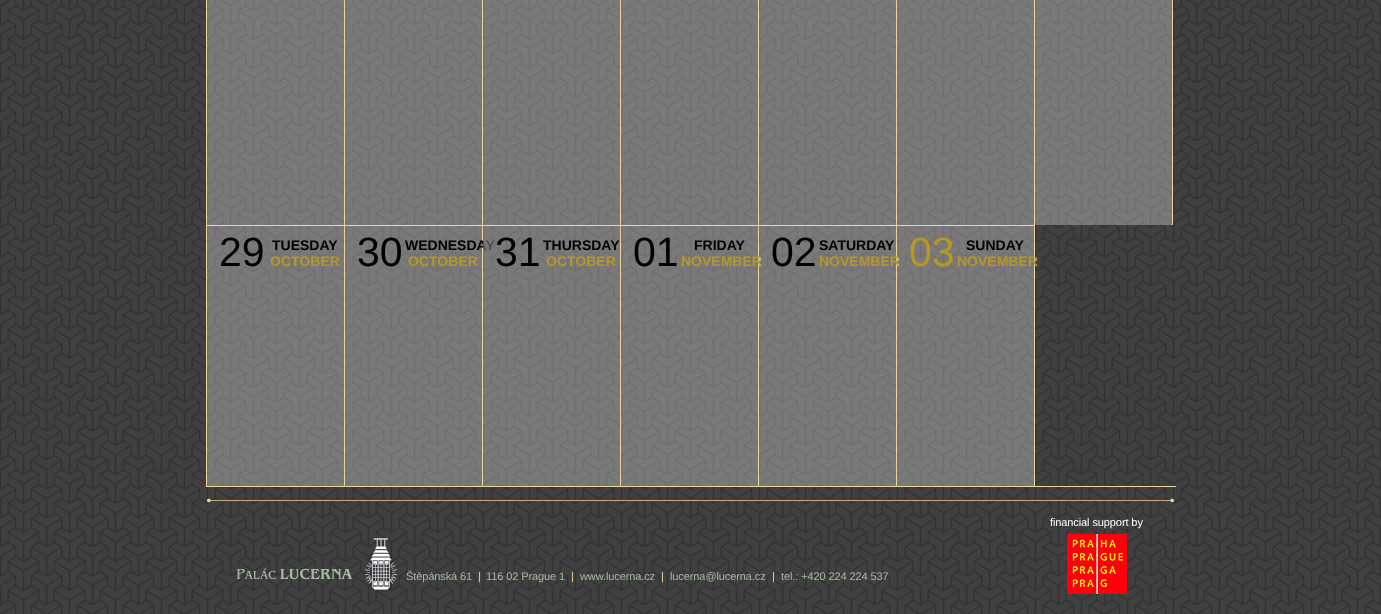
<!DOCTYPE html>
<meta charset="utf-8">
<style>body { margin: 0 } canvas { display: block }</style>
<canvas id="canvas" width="1381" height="614"></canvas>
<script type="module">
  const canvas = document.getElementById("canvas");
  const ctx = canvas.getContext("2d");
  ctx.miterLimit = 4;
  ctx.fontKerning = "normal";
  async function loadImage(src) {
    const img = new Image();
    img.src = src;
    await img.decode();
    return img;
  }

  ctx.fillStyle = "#ffffff";
  ctx.fillRect(0, 0, 1381, 614);
  ctx.drawImage(await loadImage("img1.png"), 0, 0, 1381, 614);
  ctx.fillStyle = "#f1d3a0";
  ctx.fillRect(206, 486, 970, 1);
  ctx.fillRect(206, 0, 1, 487);
  ctx.fillStyle = "rgba(255, 255, 255, 0.3)";
  ctx.fillRect(207, 0, 137, 225);
  ctx.fillStyle = "#f1d3a0";
  ctx.fillRect(344, 0, 1, 225);
  ctx.fillStyle = "rgba(255, 255, 255, 0.3)";
  ctx.fillRect(345, 0, 137, 225);
  ctx.fillStyle = "#f1d3a0";
  ctx.fillRect(482, 0, 1, 225);
  ctx.fillStyle = "rgba(255, 255, 255, 0.3)";
  ctx.fillRect(483, 0, 137, 225);
  ctx.fillStyle = "#f1d3a0";
  ctx.fillRect(620, 0, 1, 225);
  ctx.fillStyle = "rgba(255, 255, 255, 0.3)";
  ctx.fillRect(621, 0, 137, 225);
  ctx.fillStyle = "#f1d3a0";
  ctx.fillRect(758, 0, 1, 225);
  ctx.fillStyle = "rgba(255, 255, 255, 0.3)";
  ctx.fillRect(759, 0, 137, 225);
  ctx.fillStyle = "#f1d3a0";
  ctx.fillRect(896, 0, 1, 225);
  ctx.fillStyle = "rgba(255, 255, 255, 0.3)";
  ctx.fillRect(897, 0, 137, 225);
  ctx.fillStyle = "#f1d3a0";
  ctx.fillRect(1034, 0, 1, 225);
  ctx.fillStyle = "rgba(255, 255, 255, 0.3)";
  ctx.fillRect(1035, 0, 137, 225);
  ctx.fillStyle = "#f1d3a0";
  ctx.fillRect(1172, 0, 1, 225);
  ctx.fillStyle = "rgba(255, 255, 255, 0.3)";
  ctx.fillRect(207, 226, 137, 260);
  ctx.fillStyle = "#f1d3a0";
  ctx.fillRect(207, 225, 828, 1);
  ctx.fillRect(344, 225, 1, 261);
  ctx.font = "41px Liberation Sans";
  ctx.fillStyle = "#000000";
  ctx.fillText("29", 219, 266);
  ctx.font = "bold 14px Liberation Sans";
  ctx.fillText("TUESDAY", 272, 250);
  ctx.fillStyle = "#b69825";
  ctx.fillText("OCTOBER", 270, 266);
  ctx.fillStyle = "rgba(255, 255, 255, 0.3)";
  ctx.fillRect(345, 226, 137, 260);
  ctx.fillStyle = "#f1d3a0";
  ctx.fillRect(482, 225, 1, 261);
  ctx.font = "41px Liberation Sans";
  ctx.fillStyle = "#000000";
  ctx.fillText("30", 357, 266);
  ctx.font = "bold 14px Liberation Sans";
  ctx.fillText("WEDNESDAY", 405, 250);
  ctx.fillStyle = "#b69825";
  ctx.fillText("OCTOBER", 408, 266);
  ctx.fillStyle = "rgba(255, 255, 255, 0.3)";
  ctx.fillRect(483, 226, 137, 260);
  ctx.fillStyle = "#f1d3a0";
  ctx.fillRect(620, 225, 1, 261);
  ctx.font = "41px Liberation Sans";
  ctx.fillStyle = "#000000";
  ctx.fillText("31", 495, 266);
  ctx.font = "bold 14px Liberation Sans";
  ctx.fillText("THURSDAY", 543, 250);
  ctx.fillStyle = "#b69825";
  ctx.fillText("OCTOBER", 546, 266);
  ctx.fillStyle = "rgba(255, 255, 255, 0.3)";
  ctx.fillRect(621, 226, 137, 260);
  ctx.fillStyle = "#f1d3a0";
  ctx.fillRect(758, 225, 1, 261);
  ctx.font = "41px Liberation Sans";
  ctx.fillStyle = "#000000";
  ctx.fillText("01", 633, 266);
  ctx.font = "bold 14px Liberation Sans";
  ctx.fillText("FRIDAY", 694, 250);
  ctx.fillStyle = "#b69825";
  ctx.fillText("NOVEMBER", 681, 266);
  ctx.fillStyle = "rgba(255, 255, 255, 0.3)";
  ctx.fillRect(759, 226, 137, 260);
  ctx.fillStyle = "#f1d3a0";
  ctx.fillRect(896, 225, 1, 261);
  ctx.font = "41px Liberation Sans";
  ctx.fillStyle = "#000000";
  ctx.fillText("02", 771, 266);
  ctx.font = "bold 14px Liberation Sans";
  ctx.fillText("SATURDAY", 819, 250);
  ctx.fillStyle = "#b69825";
  ctx.fillText("NOVEMBER", 819, 266);
  ctx.fillStyle = "rgba(255, 255, 255, 0.3)";
  ctx.fillRect(897, 226, 137, 260);
  ctx.fillStyle = "#f1d3a0";
  ctx.fillRect(1034, 225, 1, 261);
  ctx.font = "41px Liberation Sans";
  ctx.fillStyle = "#b69825";
  ctx.fillText("03", 909, 266);
  ctx.font = "bold 14px Liberation Sans";
  ctx.fillStyle = "#000000";
  ctx.fillText("SUNDAY", 966, 250);
  ctx.fillStyle = "#b69825";
  ctx.fillText("NOVEMBER", 957, 266);
  ctx.drawImage(await loadImage("img2.png"), 207, 498, 967, 5);
  ctx.drawImage(await loadImage("img3.png"), 236, 537, 161, 55);
  ctx.drawImage(await loadImage("img4.png"), 1067, 534, 60, 60);
  ctx.letterSpacing = "-0.1px";
  ctx.font = "11px Liberation Sans";
  ctx.fillStyle = "#ffffff";
  ctx.fillText("financial support by", 1050, 526);
  ctx.fillStyle = "#a7bba3";
  ctx.fillText("Štěpánská 61", 406, 580);
  ctx.fillStyle = "#efd1a0";
  ctx.fillText("|", 478, 580);
  ctx.fillStyle = "#a7bba3";
  ctx.fillText("116 02 Prague 1", 486, 580);
  ctx.fillStyle = "#efd1a0";
  ctx.fillText("|", 571, 580);
  ctx.fillStyle = "#a7bba3";
  ctx.fillText("www.lucerna.cz", 580, 580);
  ctx.fillStyle = "#efd1a0";
  ctx.fillText("|", 661, 580);
  ctx.fillStyle = "#a7bba3";
  ctx.fillText("lucerna@lucerna.cz", 670, 580);
  ctx.fillStyle = "#efd1a0";
  ctx.fillText("|", 772, 580);
  ctx.fillStyle = "#a7bba3";
  ctx.fillText("tel.: +420 224 224 537", 781, 580);
</script>
